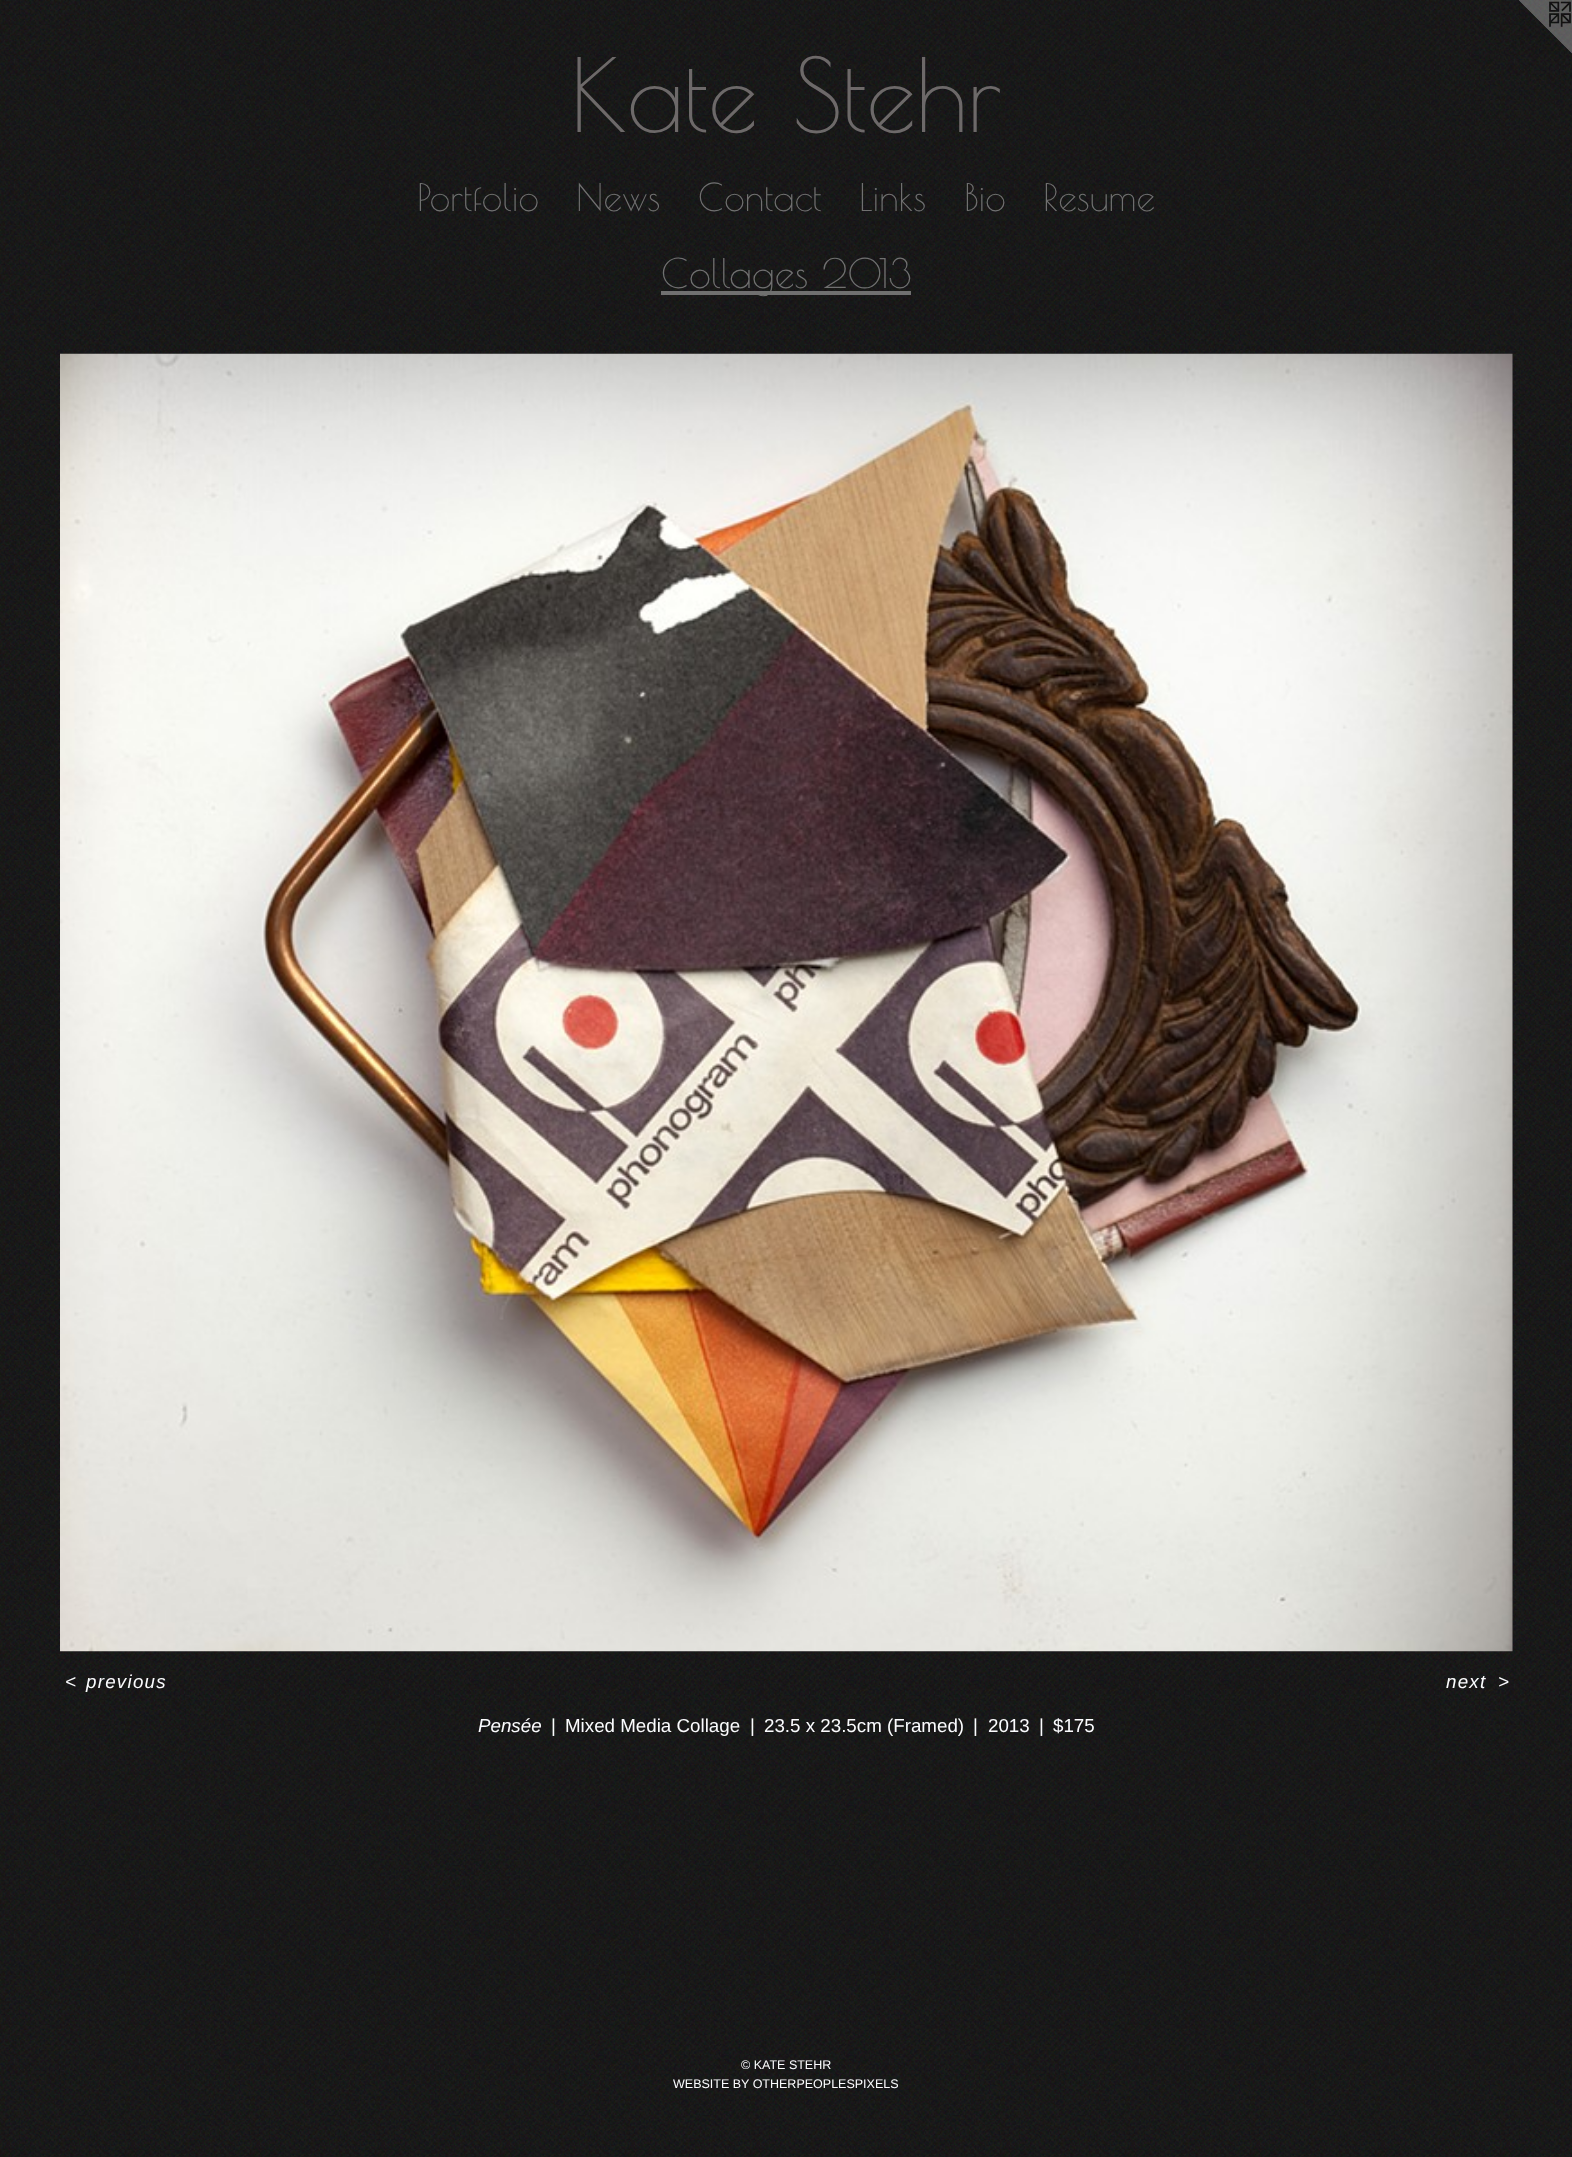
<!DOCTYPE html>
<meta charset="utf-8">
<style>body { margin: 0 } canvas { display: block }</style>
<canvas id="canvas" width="1572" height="2157"></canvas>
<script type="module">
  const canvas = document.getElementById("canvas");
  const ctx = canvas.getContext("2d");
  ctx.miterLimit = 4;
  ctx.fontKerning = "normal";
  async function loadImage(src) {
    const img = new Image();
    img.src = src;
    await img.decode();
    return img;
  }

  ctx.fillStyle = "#ffffff";
  ctx.fillRect(0, 0, 1572, 2157);
  ctx.drawImage(await loadImage("img1.png"), 0, 0, 1572, 2157);
  ctx.drawImage(await loadImage("img2.png"), 1519, 0, 53, 54);
  ctx.font = "100px Poiret One";
  ctx.fillStyle = "#6d6969";
  ctx.fillText("Kate Stehr", 570, 132);
  ctx.font = "37.5px Poiret One";
  ctx.fillStyle = "#707070";
  ctx.fillText("Portfolio", 417, 211);
  ctx.fillText("News", 576, 211);
  ctx.fillText("Contact", 698, 211);
  ctx.fillText("Links", 859, 211);
  ctx.fillText("Bio", 964, 211);
  ctx.fillText("Resume", 1043, 211);
  ctx.fillRect(661, 291, 250, 4);
  ctx.font = "40px Poiret One";
  ctx.fillText("Collages 2013", 661, 288);
  ctx.drawImage(await loadImage("img3.png"), 60, 353, 1453, 1299);
  ctx.letterSpacing = "1.25px";
  ctx.font = "italic 18.75px Liberation Sans";
  ctx.fillStyle = "#fbfcfe";
  ctx.fillText("<", 65, 1688);
  ctx.fillText("previous", 86, 1688);
  ctx.fillText("next", 1446, 1688);
  ctx.fillText(">", 1498, 1688);
  ctx.letterSpacing = "0px";
  ctx.fillText("Pensée", 478, 1732);
  ctx.font = "18.75px Liberation Sans";
  ctx.fillText("|", 551, 1732);
  ctx.fillText("Mixed Media Collage", 565, 1732);
  ctx.fillText("|", 750, 1732);
  ctx.fillText("23.5 x 23.5cm (Framed)", 764, 1732);
  ctx.fillText("|", 973, 1732);
  ctx.fillText("2013", 988, 1732);
  ctx.fillText("|", 1039, 1732);
  ctx.fillText("$175", 1053, 1732);
  ctx.font = "12.5px Liberation Sans";
  ctx.fillText("© KATE STEHR", 741, 2069);
  ctx.fillText("WEBSITE BY OTHERPEOPLESPIXELS", 673, 2088);
</script>
